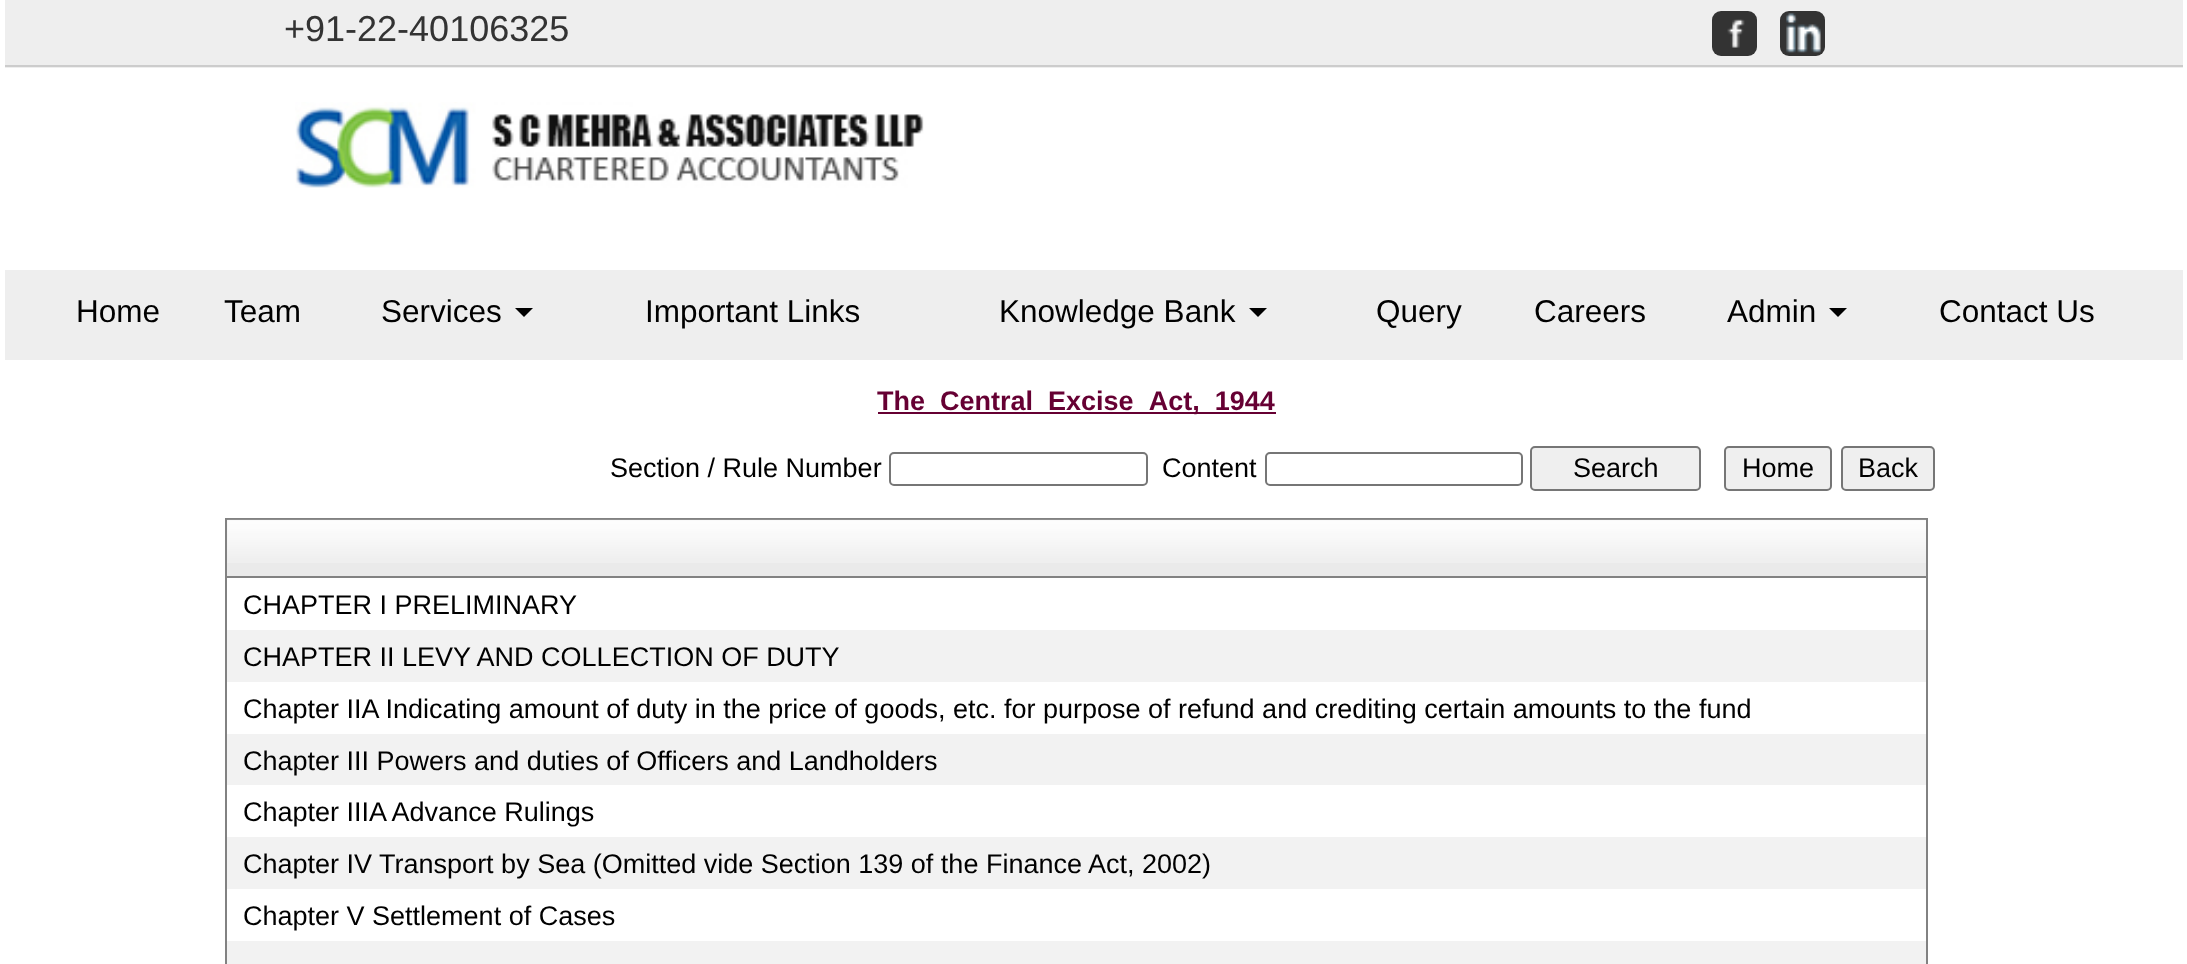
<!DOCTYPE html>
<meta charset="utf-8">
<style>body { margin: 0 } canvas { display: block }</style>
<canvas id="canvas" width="2187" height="964"></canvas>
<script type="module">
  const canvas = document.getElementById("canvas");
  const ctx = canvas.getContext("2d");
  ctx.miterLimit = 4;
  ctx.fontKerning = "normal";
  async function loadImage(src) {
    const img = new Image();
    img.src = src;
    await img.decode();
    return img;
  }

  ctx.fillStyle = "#ffffff";
  ctx.fillRect(0, 0, 2187, 964);
  ctx.fillStyle = "#eeeeee";
  ctx.fillRect(5, 0, 2178, 68);
  ctx.fillStyle = "#cccccc";
  ctx.fillRect(5, 65, 2178, 2);
  ctx.font = "36px Liberation Sans";
  ctx.fillStyle = "#333333";
  ctx.fillText("+91-22-40106325", 284, 41);
  ctx.beginPath();
  ctx.roundRect(1712, 11, 45, 45, 9);
  ctx.fill();
  ctx.drawImage(await loadImage("img1.png"), 1727, 19, 18, 29);
  ctx.beginPath();
  ctx.roundRect(1780, 11, 45, 45, 9);
  ctx.fill();
  ctx.drawImage(await loadImage("img2.png"), 1786, 13, 35, 40);
  ctx.drawImage(await loadImage("img3.png"), 295, 102, 629, 86);
  ctx.fillStyle = "#eeeeee";
  ctx.fillRect(5, 270, 2178, 90);
  ctx.font = "31.5px Liberation Sans";
  ctx.fillStyle = "#000000";
  ctx.fillText("Home", 76, 322);
  ctx.fillText("Team", 224, 322);
  ctx.fillText("Services", 381, 322);
  ctx.beginPath();
  ctx.moveTo(515, 308);
  ctx.lineTo(533, 308);
  ctx.lineTo(524, 317);
  ctx.closePath();
  ctx.fill();
  ctx.fillText("Important Links", 645, 322);
  ctx.fillText("Knowledge Bank", 999, 322);
  ctx.beginPath();
  ctx.moveTo(1249, 308);
  ctx.lineTo(1267, 308);
  ctx.lineTo(1258, 317);
  ctx.closePath();
  ctx.fill();
  ctx.fillText("Query", 1376, 322);
  ctx.fillText("Careers", 1534, 322);
  ctx.fillText("Admin", 1727, 322);
  ctx.beginPath();
  ctx.moveTo(1829, 308);
  ctx.lineTo(1847, 308);
  ctx.lineTo(1838, 317);
  ctx.closePath();
  ctx.fill();
  ctx.fillText("Contact Us", 1939, 322);
  ctx.fillStyle = "#660033";
  ctx.fillRect(878, 412, 398, 2);
  ctx.font = "bold 27px Liberation Sans";
  ctx.fillText("The_Central_Excise_Act,_1944", 877, 410);
  ctx.font = "27px Liberation Sans";
  ctx.fillStyle = "#000000";
  ctx.fillText("Section / Rule Number", 610, 477);
  ctx.beginPath();
  ctx.roundRect(890, 453, 257, 32, 4);
  ctx.strokeStyle = "#767676";
  ctx.lineWidth = 2;
  ctx.stroke();
  ctx.fillText("Content", 1162, 477);
  ctx.beginPath();
  ctx.roundRect(1266, 453, 256, 32, 4);
  ctx.stroke();
  ctx.fillStyle = "#efefef";
  ctx.beginPath();
  ctx.roundRect(1531, 447, 169, 43, 4);
  ctx.fill();
  ctx.stroke();
  ctx.fillStyle = "#000000";
  ctx.fillText("Search", 1573, 477);
  ctx.fillStyle = "#efefef";
  ctx.beginPath();
  ctx.roundRect(1725, 447, 106, 43, 4);
  ctx.fill();
  ctx.stroke();
  ctx.fillStyle = "#000000";
  ctx.fillText("Home", 1742, 477);
  ctx.fillStyle = "#efefef";
  ctx.beginPath();
  ctx.roundRect(1842, 447, 92, 43, 4);
  ctx.fill();
  ctx.stroke();
  ctx.fillStyle = "#000000";
  ctx.fillText("Back", 1858, 477);
  ctx.strokeStyle = "#828282";
  ctx.strokeRect(226, 519, 1701, 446);
  ctx.fillStyle = "#eaeaea";
  ctx.fillRect(227, 520, 1699, 56);
  ctx.drawImage(await loadImage("img4.png"), 227, 519, 1699, 44);
  ctx.fillStyle = "#828282";
  ctx.fillRect(227, 576, 1699, 2);
  ctx.fillStyle = "#000000";
  ctx.fillText("CHAPTER I PRELIMINARY", 243, 614);
  ctx.fillStyle = "#f2f2f2";
  ctx.fillRect(227, 630, 1699, 52);
  ctx.fillStyle = "#000000";
  ctx.fillText("CHAPTER II LEVY AND COLLECTION OF DUTY", 243, 666);
  ctx.fillText("Chapter IIA Indicating amount of duty in the price of goods, etc. for purpose of refund and crediting certain amounts to the fund", 243, 718);
  ctx.fillStyle = "#f2f2f2";
  ctx.fillRect(227, 734, 1699, 51);
  ctx.fillStyle = "#000000";
  ctx.fillText("Chapter III Powers and duties of Officers and Landholders", 243, 770);
  ctx.fillText("Chapter IIIA Advance Rulings", 243, 821);
  ctx.fillStyle = "#f2f2f2";
  ctx.fillRect(227, 837, 1699, 52);
  ctx.fillStyle = "#000000";
  ctx.fillText("Chapter IV Transport by Sea (Omitted vide Section 139 of the Finance Act, 2002)", 243, 873);
  ctx.fillText("Chapter V Settlement of Cases", 243, 925);
  ctx.fillStyle = "#f2f2f2";
  ctx.fillRect(227, 941, 1699, 23);
</script>
